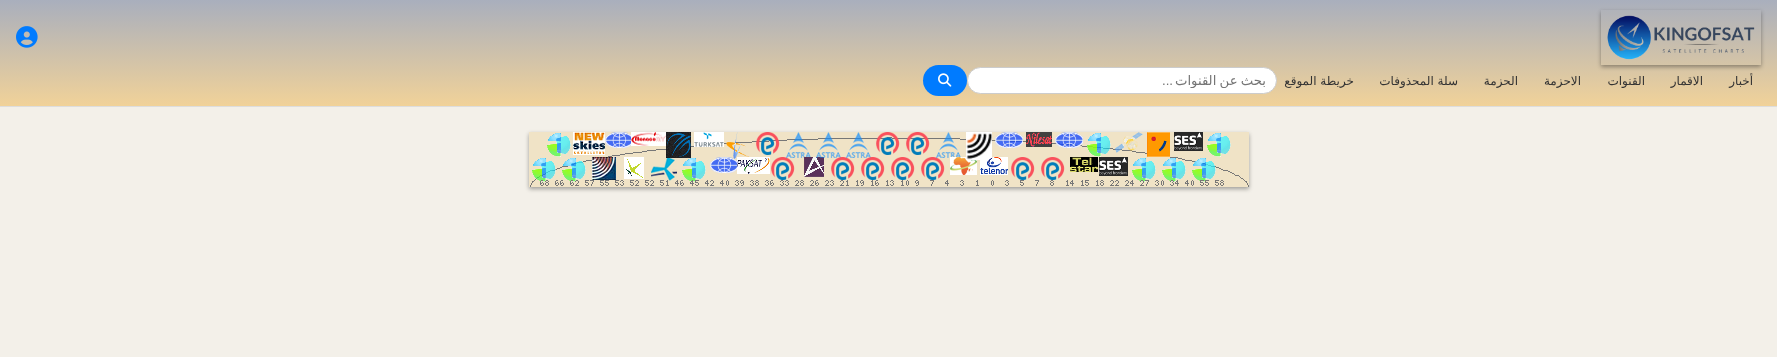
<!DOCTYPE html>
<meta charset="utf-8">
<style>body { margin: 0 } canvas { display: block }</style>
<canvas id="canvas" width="1777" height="357"></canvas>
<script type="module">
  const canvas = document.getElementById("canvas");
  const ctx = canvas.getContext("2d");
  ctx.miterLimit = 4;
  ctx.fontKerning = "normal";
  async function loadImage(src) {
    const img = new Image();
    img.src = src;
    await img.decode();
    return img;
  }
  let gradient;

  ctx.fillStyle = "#ffffff";
  ctx.fillRect(0, 0, 1777, 357);
  gradient = ctx.createLinearGradient(889, 0, 889, 106);
  gradient.addColorStop(0, "#a9afbd");
  gradient.addColorStop(1, "#f1d299");
  ctx.fillStyle = gradient;
  ctx.fillRect(0, 0, 1777, 106);
  ctx.fillStyle = "#dddddd";
  ctx.fillRect(0, 106, 1777, 1);
  ctx.save();
  ctx.beginPath();
  ctx.moveTo(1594, 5);
  ctx.lineTo(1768, 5);
  ctx.lineTo(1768, 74);
  ctx.lineTo(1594, 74);
  ctx.closePath();
  ctx.moveTo(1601, 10);
  ctx.lineTo(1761, 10);
  ctx.lineTo(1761, 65);
  ctx.lineTo(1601, 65);
  ctx.closePath();
  ctx.clip("evenodd");
  ctx.fillStyle = "rgba(0, 0, 0, 0.35)";
  ctx.filter = "blur(2px)";
  ctx.beginPath();
  ctx.rect(1601, 12, 160, 55);
  ctx.fill();
  ctx.filter = "none";
  ctx.restore();
  ctx.drawImage(await loadImage("img1.png"), 1607, 15, 148, 45);
  ctx.drawImage(await loadImage("img2.png"), 16, 26, 22, 22);
  ctx.direction = "rtl";
  ctx.font = "12px DejaVu Sans";
  ctx.fillStyle = "#333333";
  ctx.fillText("أخبار", 1753, 85);
  ctx.fillText("الاقمار", 1703, 85);
  ctx.fillText("القنوات", 1645, 85);
  ctx.fillText("الاحزمة", 1581, 85);
  ctx.fillText("الحزمة", 1518, 85);
  ctx.fillText("سلة المحذوفات", 1458, 85);
  ctx.fillText("خريطة الموقع", 1354, 85);
  ctx.fillStyle = "#ffffff";
  ctx.beginPath();
  ctx.roundRect(967.5, 67.5, 309, 26, 13);
  ctx.fill();
  ctx.strokeStyle = "#cccccc";
  ctx.stroke();
  ctx.save();
  ctx.beginPath();
  ctx.rect(978, 73, 288, 15);
  ctx.clip();
  ctx.wordSpacing = "-1px";
  ctx.font = "13.25px DejaVu Sans";
  ctx.fillStyle = "#757575";
  ctx.fillText("بحث عن القنوات", 1266, 85);
  ctx.restore();
  ctx.font = "13.25px Liberation Sans";
  ctx.fillStyle = "#757575";
  ctx.fillText("...", 1173, 85);
  ctx.fillStyle = "#007bff";
  ctx.beginPath();
  ctx.roundRect(923, 65, 44, 31, 15.5);
  ctx.fill();
  ctx.drawImage(await loadImage("img3.png"), 938, 73, 14, 14);
  ctx.fillStyle = "#f3f0e9";
  ctx.fillRect(0, 107, 1777, 250);
  ctx.fillStyle = "rgba(0, 0, 0, 0.35)";
  ctx.filter = "blur(2px)";
  ctx.beginPath();
  ctx.rect(529, 134, 720, 55);
  ctx.fill();
  ctx.filter = "none";
  ctx.drawImage(await loadImage("img4.png"), 529, 132, 720, 55);
</script>
